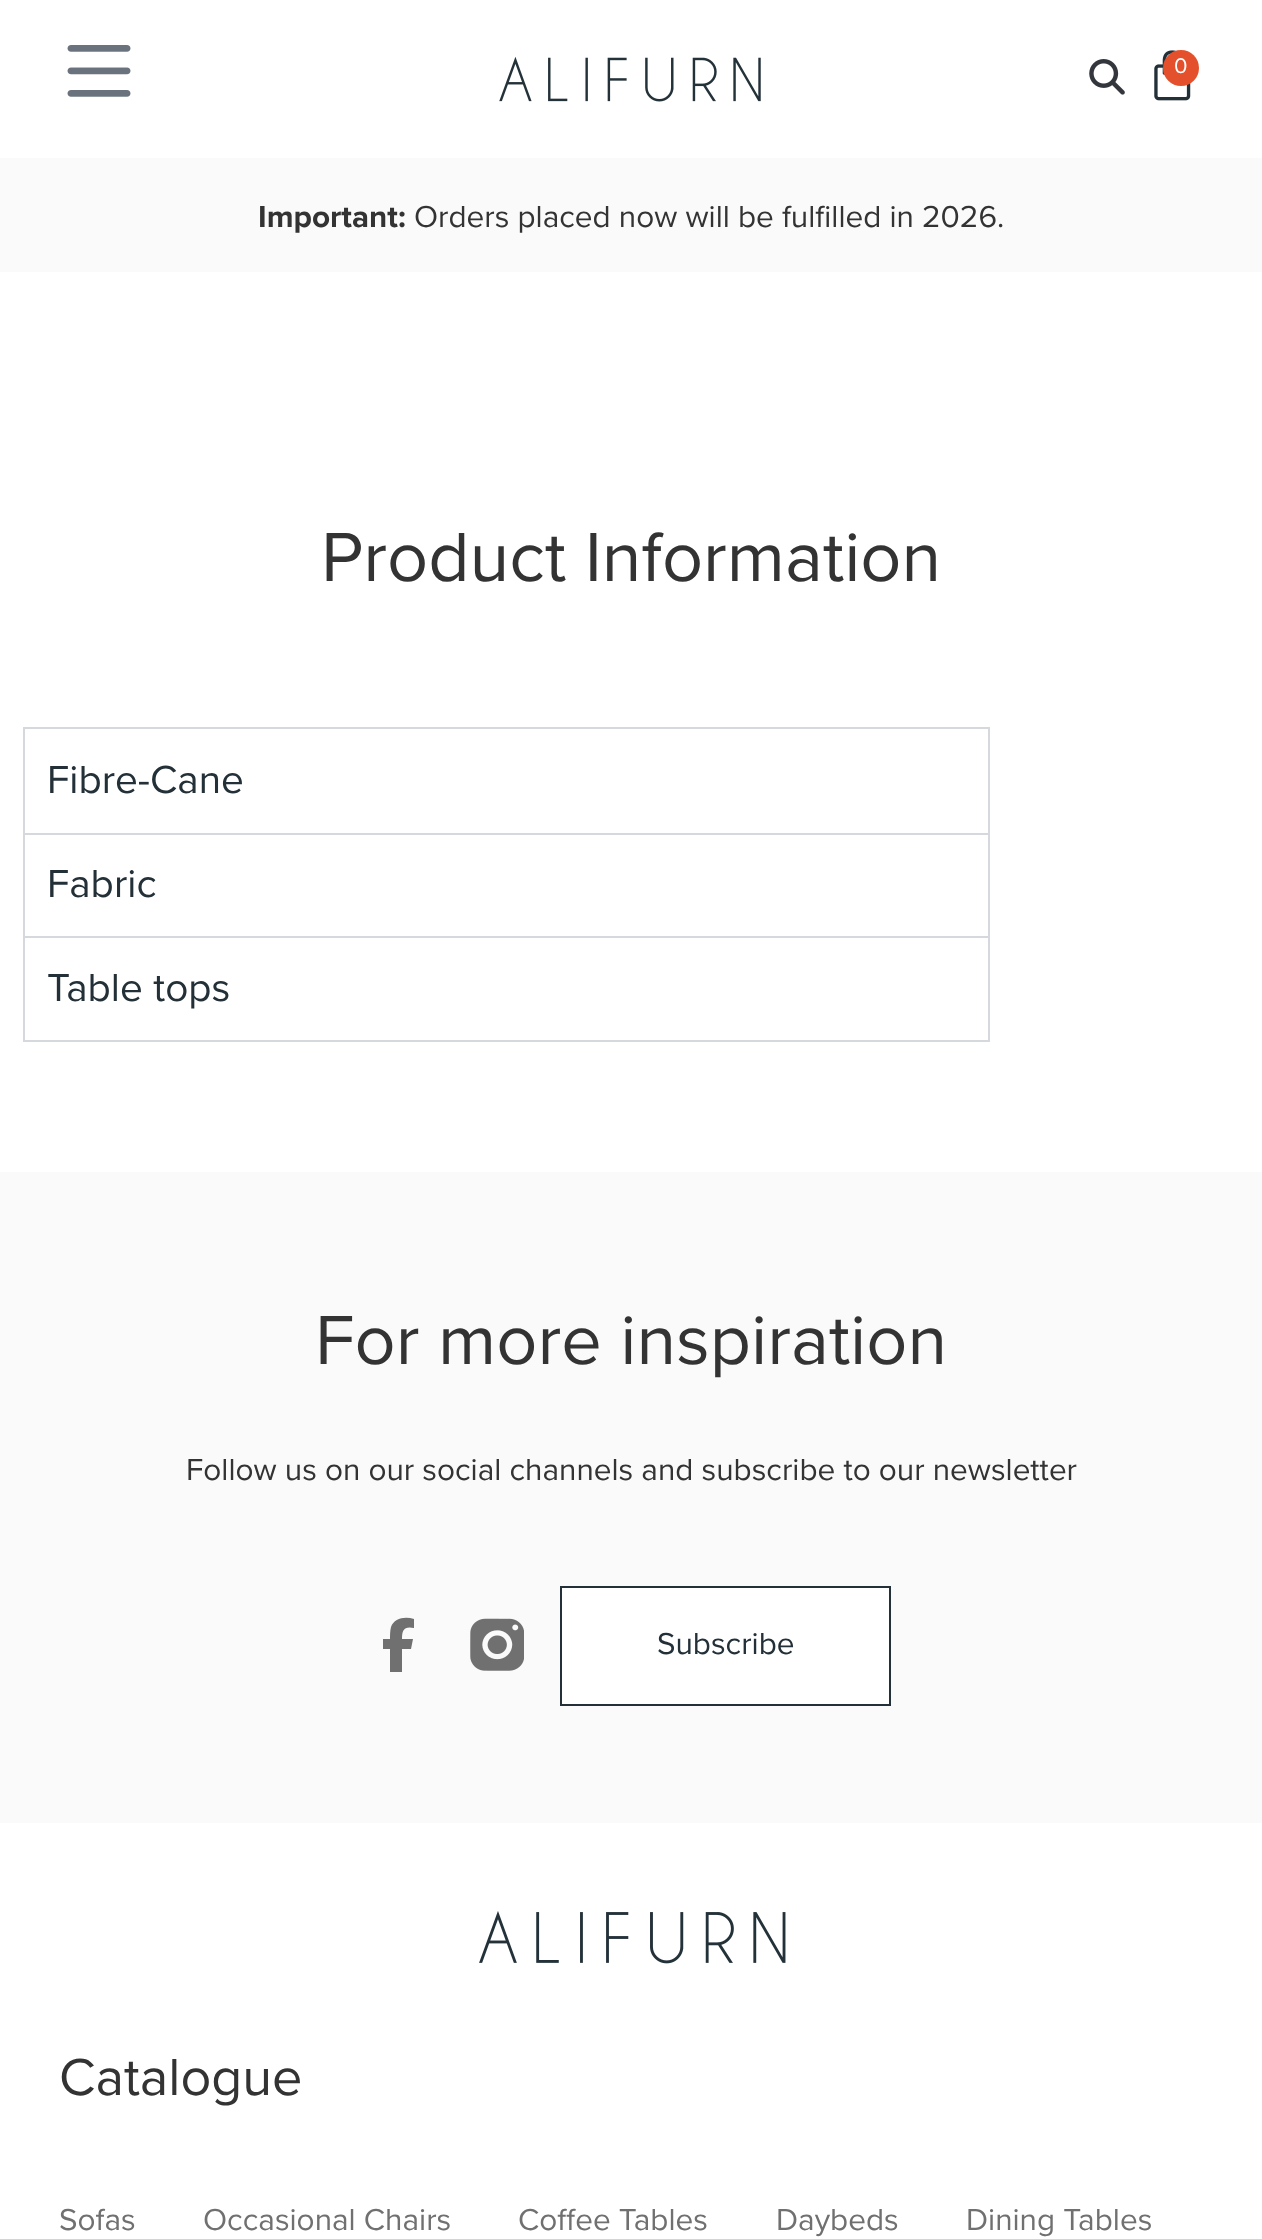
<!DOCTYPE html>
<meta charset="utf-8">
<style>body { margin: 0 } canvas { display: block }</style>
<canvas id="canvas" width="1262" height="2239"></canvas>
<script type="module">
  const canvas = document.getElementById("canvas");
  const ctx = canvas.getContext("2d");
  ctx.miterLimit = 4;
  ctx.fontKerning = "normal";
  async function loadImage(src) {
    const img = new Image();
    img.src = src;
    await img.decode();
    return img;
  }

  ctx.fillStyle = "#ffffff";
  ctx.fillRect(0, 0, 1262, 2239);
  ctx.drawImage(await loadImage("img1.png"), 67, 45, 64, 52);
  ctx.drawImage(await loadImage("img2.png"), 499, 56, 262, 46);
  ctx.drawImage(await loadImage("img3.png"), 1089, 59, 36, 36);
  ctx.drawImage(await loadImage("img4.png"), 1154, 50, 37, 51);
  ctx.fillStyle = "#e4502c";
  ctx.beginPath();
  ctx.arc(1181, 68, 18, 0, Math.PI * 2);
  ctx.fill();
  ctx.font = "22px Proxima Nova";
  ctx.fillStyle = "#ffffff";
  ctx.fillText("0", 1174, 73);
  ctx.fillStyle = "#fafafa";
  ctx.fillRect(0, 158, 1262, 114);
  ctx.font = "bold 31.5px Proxima Nova";
  ctx.fillStyle = "#333333";
  ctx.fillText("Important:", 258, 227);
  ctx.font = "31.5px Proxima Nova";
  ctx.fillText("Orders placed now will be fulfilled in 2026.", 414, 227);
  ctx.font = "72px Proxima Nova";
  ctx.fillText("Product Information", 321, 581);
  ctx.fillStyle = "#d5d8dc";
  ctx.fillRect(23, 1040, 967, 2);
  ctx.fillRect(23, 727, 967, 2);
  ctx.fillRect(988, 727, 2, 106);
  ctx.fillRect(23, 727, 2, 106);
  ctx.font = "40.5px Proxima Nova";
  ctx.fillStyle = "#233038";
  ctx.fillText("Fibre-Cane", 47, 793);
  ctx.fillStyle = "#d5d8dc";
  ctx.fillRect(23, 833, 967, 2);
  ctx.fillRect(988, 833, 2, 103);
  ctx.fillRect(23, 833, 2, 103);
  ctx.fillStyle = "#233038";
  ctx.fillText("Fabric", 47, 897);
  ctx.fillStyle = "#d5d8dc";
  ctx.fillRect(23, 936, 967, 2);
  ctx.fillRect(988, 936, 2, 104);
  ctx.fillRect(23, 936, 2, 104);
  ctx.fillStyle = "#233038";
  ctx.fillText("Table tops", 47, 1001);
  ctx.fillStyle = "#fafafa";
  ctx.fillRect(0, 1172, 1262, 651);
  ctx.font = "72px Proxima Nova";
  ctx.fillStyle = "#333333";
  ctx.fillText("For more inspiration", 315, 1364);
  ctx.font = "31.5px Proxima Nova";
  ctx.fillText("Follow us on our social channels and subscribe to our newsletter", 186, 1480);
  ctx.fillStyle = "#707070";
  ctx.beginPath();
  ctx.moveTo(390, 1649);
  ctx.lineTo(390, 1672);
  ctx.lineTo(390, 1649);
  ctx.lineTo(390, 1672);
  ctx.lineTo(402, 1672);
  ctx.lineTo(402, 1649);
  ctx.lineTo(411, 1649);
  ctx.lineTo(413, 1639);
  ctx.lineTo(402, 1639);
  ctx.bezierCurveTo(402, 1630, 404, 1626, 414, 1628);
  ctx.lineTo(414, 1619);
  ctx.bezierCurveTo(405, 1616, 394, 1618, 391, 1627);
  ctx.bezierCurveTo(390, 1631, 390, 1635, 390, 1639);
  ctx.lineTo(383, 1639);
  ctx.lineTo(383, 1649);
  ctx.closePath();
  ctx.fill();
  ctx.drawImage(await loadImage("img5.png"), 470, 1618, 54, 53);
  ctx.fillStyle = "#ffffff";
  ctx.beginPath();
  ctx.rect(561, 1587, 329, 118);
  ctx.fill();
  ctx.strokeStyle = "#233038";
  ctx.lineWidth = 2;
  ctx.stroke();
  ctx.fillStyle = "#233038";
  ctx.fillText("Subscribe", 657, 1654);
  ctx.drawImage(await loadImage("img6.png"), 479, 1911, 307, 53);
  ctx.font = "54px Proxima Nova";
  ctx.fillStyle = "#333333";
  ctx.fillText("Catalogue", 59, 2095);
  ctx.font = "31.5px Proxima Nova";
  ctx.fillStyle = "#707070";
  ctx.fillText("Sofas", 59, 2230);
  ctx.fillText("Occasional Chairs", 203, 2230);
  ctx.fillText("Coffee Tables", 518, 2230);
  ctx.fillText("Daybeds", 776, 2230);
  ctx.fillText("Dining Tables", 966, 2230);
</script>
